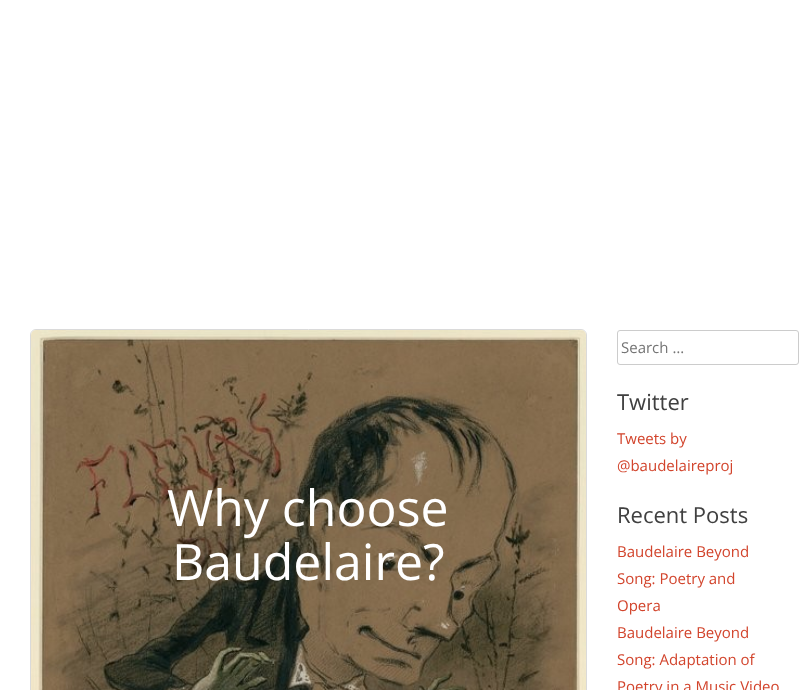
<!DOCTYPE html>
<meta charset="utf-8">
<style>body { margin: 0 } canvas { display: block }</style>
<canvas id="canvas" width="812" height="690"></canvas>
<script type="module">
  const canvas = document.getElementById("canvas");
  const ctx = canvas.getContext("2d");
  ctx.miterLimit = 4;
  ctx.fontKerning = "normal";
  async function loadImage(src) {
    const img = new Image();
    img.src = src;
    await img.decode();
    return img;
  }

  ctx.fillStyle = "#ffffff";
  ctx.fillRect(0, 0, 812, 690);
  ctx.beginPath();
  ctx.roundRect(30.5, 329.5, 556, 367, 5.5);
  ctx.strokeStyle = "#dadada";
  ctx.stroke();
  ctx.drawImage(await loadImage("img1.png"), 31, 330, 555, 360);
  ctx.font = "50px Open Sans";
  ctx.fillText("Why choose", 167, 526);
  ctx.fillText("Baudelaire?", 172, 580);
  ctx.beginPath();
  ctx.roundRect(617.5, 330.5, 181, 34, 2.5);
  ctx.strokeStyle = "#cccccc";
  ctx.stroke();
  ctx.font = "15px Open Sans";
  ctx.fillStyle = "#757575";
  ctx.fillText("Search …", 621, 353);
  ctx.font = "22px Open Sans";
  ctx.fillStyle = "#404040";
  ctx.fillText("Twitter", 617, 410);
  ctx.font = "15px Open Sans";
  ctx.fillStyle = "#d2442c";
  ctx.fillText("Tweets by", 617, 444);
  ctx.fillText("@baudelaireproj", 617, 471);
  ctx.font = "22px Open Sans";
  ctx.fillStyle = "#404040";
  ctx.fillText("Recent Posts", 617, 523);
  ctx.font = "15px Open Sans";
  ctx.fillStyle = "#d2442c";
  ctx.fillText("Baudelaire Beyond", 617, 557);
  ctx.fillText("Song: Poetry and", 617, 584);
  ctx.fillText("Opera", 617, 611);
  ctx.fillText("Baudelaire Beyond", 617, 638);
  ctx.fillText("Song: Adaptation of", 617, 665);
  ctx.fillText("Poetry in a Music Video", 617, 692);
</script>
